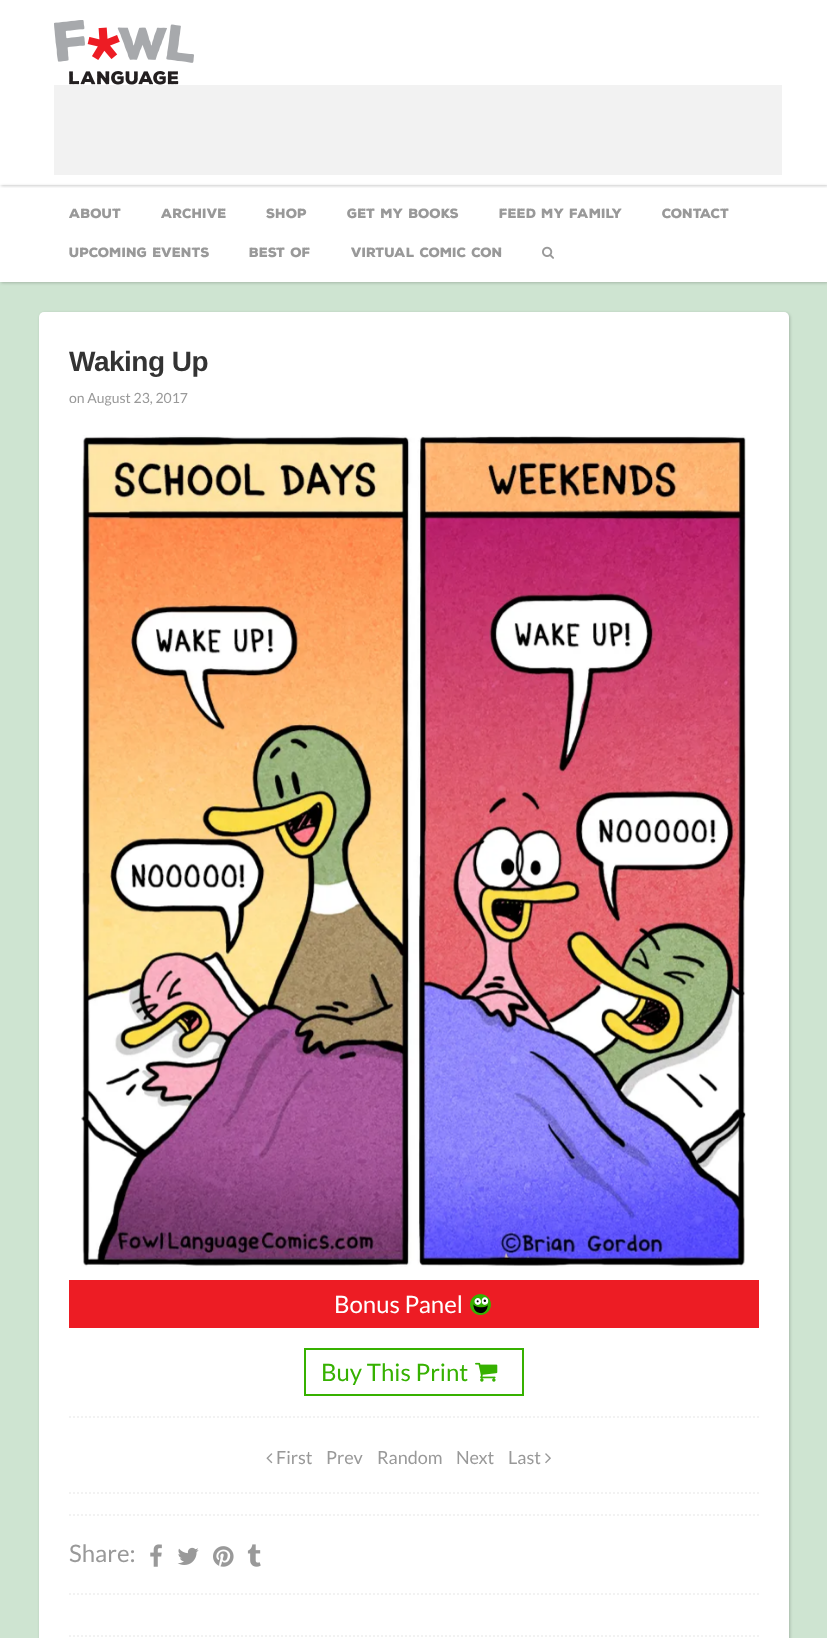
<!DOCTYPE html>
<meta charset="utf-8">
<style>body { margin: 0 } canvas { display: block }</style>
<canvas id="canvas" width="827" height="1638"></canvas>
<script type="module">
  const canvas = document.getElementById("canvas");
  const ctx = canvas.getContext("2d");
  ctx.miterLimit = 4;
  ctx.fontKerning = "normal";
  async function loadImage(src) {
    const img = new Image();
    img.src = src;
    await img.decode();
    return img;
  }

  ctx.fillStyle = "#ffffff";
  ctx.fillRect(0, 0, 827, 1638);
  ctx.save();
  ctx.beginPath();
  ctx.rect(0, 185, 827, 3);
  ctx.clip();
  ctx.fillStyle = "rgba(0, 0, 0, 0.2)";
  ctx.filter = "blur(1.5px)";
  ctx.beginPath();
  ctx.rect(1, 1, 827, 185);
  ctx.fill();
  ctx.filter = "none";
  ctx.restore();
  ctx.drawImage(await loadImage("img1.png"), 54, 20, 140, 65);
  ctx.fillStyle = "#f2f2f2";
  ctx.fillRect(54, 85, 728, 90);
  ctx.fillStyle = "#cee4d1";
  ctx.fillRect(0, 282, 827, 1356);
  ctx.save();
  ctx.beginPath();
  ctx.moveTo(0, 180);
  ctx.lineTo(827, 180);
  ctx.lineTo(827, 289);
  ctx.lineTo(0, 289);
  ctx.closePath();
  ctx.moveTo(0, 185);
  ctx.lineTo(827, 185);
  ctx.lineTo(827, 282);
  ctx.lineTo(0, 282);
  ctx.closePath();
  ctx.clip("evenodd");
  ctx.fillStyle = "rgba(0, 0, 0, 0.2)";
  ctx.filter = "blur(1.5px)";
  ctx.beginPath();
  ctx.rect(1, 186, 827, 97);
  ctx.fill();
  ctx.filter = "none";
  ctx.restore();
  ctx.font = "900 13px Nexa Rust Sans";
  ctx.fillStyle = "#999999";
  ctx.fillText("About", 69, 218);
  ctx.fillText("Archive", 161, 218);
  ctx.fillText("Shop", 266, 218);
  ctx.fillText("Get My Books", 347, 218);
  ctx.fillText("Feed My Family", 499, 218);
  ctx.fillText("CONTACT", 662, 218);
  ctx.fillText("Upcoming Events", 69, 257);
  ctx.fillText("Best Of", 249, 257);
  ctx.fillText("Virtual Comic Con", 351, 257);
  ctx.drawImage(await loadImage("img2.png"), 542, 246, 12, 13);
  ctx.fillStyle = "rgba(0, 0, 0, 0.2)";
  ctx.filter = "blur(1.5px)";
  ctx.beginPath();
  ctx.roundRect(40, 313, 750, 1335, 5);
  ctx.fill();
  ctx.filter = "none";
  ctx.fillStyle = "#ffffff";
  ctx.beginPath();
  ctx.roundRect(39, 312, 750, 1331, 5);
  ctx.fill();
  ctx.letterSpacing = "-0.5px";
  ctx.font = "bold 28px Liberation Sans";
  ctx.fillStyle = "#333333";
  ctx.fillText("Waking Up", 69, 371);
  ctx.letterSpacing = "0px";
  ctx.font = "14px Lato";
  ctx.fillStyle = "#999999";
  ctx.fillText("on August 23, 2017", 69, 403);
  ctx.drawImage(await loadImage("img3.png"), 81, 435, 665, 832);
  ctx.fillStyle = "#ed1c24";
  ctx.fillRect(69, 1280, 690, 48);
  ctx.font = "24px Lato";
  ctx.fillStyle = "#ffffff";
  ctx.fillText("Bonus Panel", 334, 1313);
  ctx.drawImage(await loadImage("img4.png"), 470, 1294, 21, 21);
  ctx.strokeStyle = "#36b100";
  ctx.lineWidth = 2;
  ctx.strokeRect(305, 1349, 218, 46);
  ctx.fillStyle = "#36b100";
  ctx.fillText("Buy This Print", 321, 1381);
  ctx.drawImage(await loadImage("img5.png"), 475, 1362, 23, 20);
  ctx.beginPath();
  ctx.moveTo(69, 1417);
  ctx.lineTo(759, 1417);
  ctx.strokeStyle = "#f2f2f2";
  ctx.setLineDash([2, 2]);
  ctx.stroke();
  ctx.beginPath();
  ctx.moveTo(69, 1493);
  ctx.lineTo(759, 1493);
  ctx.stroke();
  ctx.drawImage(await loadImage("img6.png"), 266, 1453, 7, 11);
  ctx.font = "18px Lato";
  ctx.fillStyle = "#999999";
  ctx.fillText("First", 276, 1464);
  ctx.fillText("Prev", 326, 1464);
  ctx.fillText("Random", 377, 1464);
  ctx.fillText("Next", 456, 1464);
  ctx.fillText("Last", 508, 1464);
  ctx.drawImage(await loadImage("img7.png"), 545, 1453, 6, 11);
  ctx.beginPath();
  ctx.moveTo(69, 1515);
  ctx.lineTo(759, 1515);
  ctx.stroke();
  ctx.beginPath();
  ctx.moveTo(69, 1594);
  ctx.lineTo(759, 1594);
  ctx.stroke();
  ctx.font = "24px Lato";
  ctx.fillText("Share:", 69, 1562);
  ctx.drawImage(await loadImage("img8.png"), 150, 1544, 12, 23);
  ctx.drawImage(await loadImage("img9.png"), 177, 1547, 22, 18);
  ctx.drawImage(await loadImage("img10.png"), 213, 1546, 21, 21);
  ctx.drawImage(await loadImage("img11.png"), 247, 1544, 14, 23);
  ctx.beginPath();
  ctx.moveTo(69, 1636);
  ctx.lineTo(759, 1636);
  ctx.stroke();
</script>
